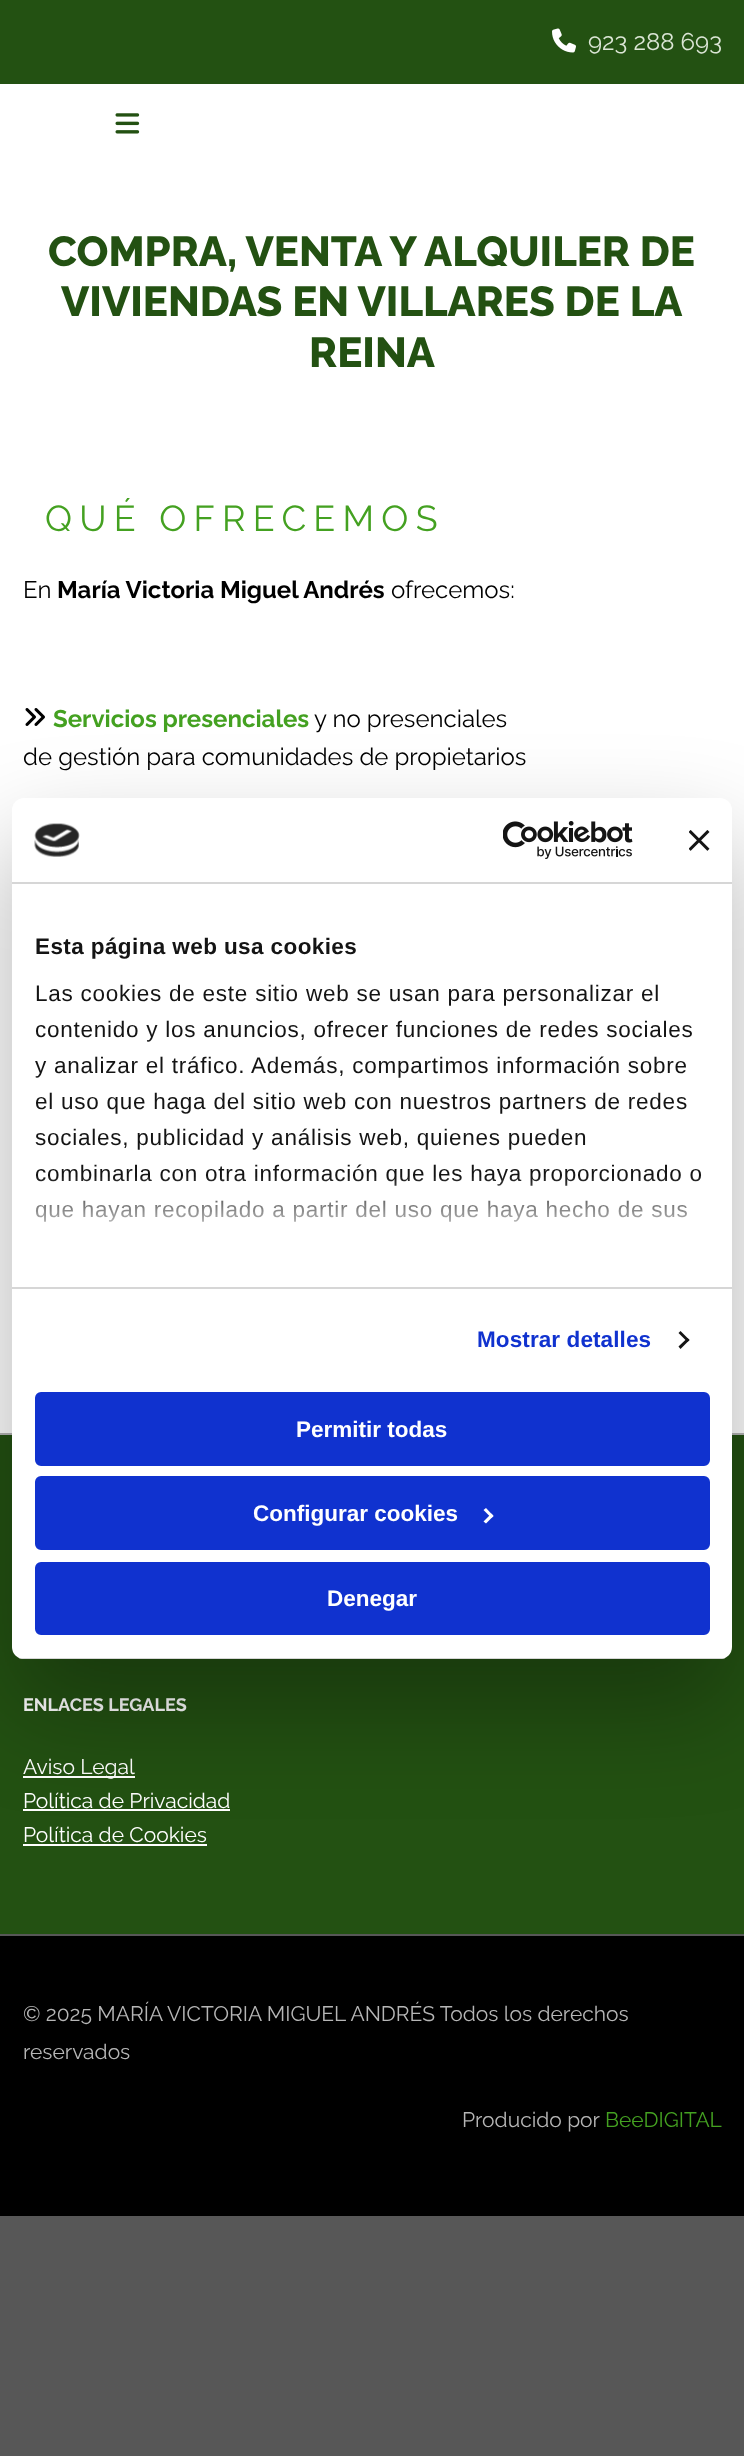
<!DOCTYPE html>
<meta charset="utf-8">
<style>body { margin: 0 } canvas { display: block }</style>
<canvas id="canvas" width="744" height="2456"></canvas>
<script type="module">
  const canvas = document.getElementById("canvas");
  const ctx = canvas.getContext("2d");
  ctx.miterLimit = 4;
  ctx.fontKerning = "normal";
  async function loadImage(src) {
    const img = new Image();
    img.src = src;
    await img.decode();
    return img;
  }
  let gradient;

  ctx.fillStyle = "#575757";
  ctx.fillRect(0, 0, 744, 2456);
  ctx.fillStyle = "#235112";
  ctx.fillRect(0, 0, 744, 84);
  ctx.drawImage(await loadImage("img1.png"), 552, 28, 24, 25);
  ctx.font = "100 24px Raleway";
  ctx.fillStyle = "#dce6d6";
  ctx.fillText("923 288 693", 588, 50);
  ctx.fillStyle = "#ffffff";
  ctx.fillRect(0, 84, 744, 1349);
  ctx.drawImage(await loadImage("img2.png"), 115, 113, 25, 21);
  ctx.font = "100 42px 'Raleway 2'";
  ctx.fillStyle = "#235112";
  ctx.fillText("COMPRA, VENTA Y ALQUILER DE", 48, 266);
  ctx.fillText("VIVIENDAS EN VILLARES DE LA", 61, 316);
  ctx.fillText("REINA", 309, 367);
  ctx.letterSpacing = "7.25px";
  ctx.font = "100 36px Raleway";
  ctx.fillStyle = "#44a121";
  ctx.fillText("QUÉ OFRECEMOS", 45, 531);
  ctx.letterSpacing = "0px";
  ctx.font = "100 24px Raleway";
  ctx.fillStyle = "#000000";
  ctx.fillText("En", 23, 598);
  ctx.font = "100 24px 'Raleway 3'";
  ctx.fillText("María Victoria Miguel Andrés", 57, 598);
  ctx.font = "100 24px Raleway";
  ctx.fillText("ofrecemos:", 391, 598);
  ctx.drawImage(await loadImage("img3.png"), 25, 708, 20, 18);
  ctx.font = "100 24px 'Raleway 3'";
  ctx.fillStyle = "#44a121";
  ctx.fillText("Servicios presenciales", 53, 727);
  ctx.font = "100 24px Raleway";
  ctx.fillStyle = "#000000";
  ctx.fillText("y no presenciales", 314, 727);
  ctx.fillText("de gestión para comunidades de propietarios", 23, 765);
  ctx.fillStyle = "#235112";
  ctx.fillRect(0, 1435, 744, 499);
  ctx.fillStyle = "#b6b6b6";
  ctx.fillRect(0, 1433, 744, 2);
  ctx.font = "100 18px 'Raleway 3'";
  ctx.fillStyle = "#ffffff";
  ctx.fillText("ENLACES LEGALES", 23, 1711);
  ctx.fillRect(23, 1776, 112, 2);
  ctx.font = "100 21px Raleway";
  ctx.fillText("Aviso Legal", 23, 1774);
  ctx.fillText("Política de Privacidad", 23, 1808);
  ctx.fillRect(23, 1809, 207, 2);
  ctx.fillText("Política de Cookies", 23, 1842);
  ctx.fillRect(23, 1844, 184, 2);
  ctx.fillStyle = "#000000";
  ctx.fillRect(0, 1936, 744, 280);
  ctx.fillStyle = "#b6b6b6";
  ctx.fillText("© 2025 MARÍA VICTORIA MIGUEL ANDRÉS Todos los derechos", 23, 2021);
  ctx.fillText("reservados", 23, 2059);
  ctx.fillText("Producido por", 462, 2127);
  ctx.fillStyle = "#44a121";
  ctx.fillText("BeeDIGITAL", 605, 2127);
  ctx.fillStyle = "rgba(0, 0, 0, 0.3)";
  ctx.filter = "blur(51px)";
  ctx.beginPath();
  ctx.roundRect(12, 846, 720, 861, 12);
  ctx.fill();
  ctx.filter = "none";
  ctx.fillStyle = "#ffffff";
  ctx.beginPath();
  ctx.roundRect(12, 798, 720, 861, 12);
  ctx.fill();
  ctx.fillStyle = "#d6d6d6";
  ctx.fillRect(12, 882, 720, 2);
  ctx.drawImage(await loadImage("img4.png"), 34, 823, 46, 34);
  ctx.drawImage(await loadImage("img5.png"), 503, 821, 130, 38);
  ctx.drawImage(await loadImage("img6.png"), 689, 830, 21, 21);
  ctx.fillRect(12, 1287, 720, 2);
  ctx.letterSpacing = "0.4px";
  ctx.font = "bold 22.5px Liberation Sans";
  ctx.fillStyle = "#141414";
  ctx.fillText("Esta página web usa cookies", 35, 954);
  ctx.letterSpacing = "0.75px";
  ctx.font = "22.5px Liberation Sans";
  ctx.fillText("Las cookies de este sitio web se usan para personalizar el", 35, 1001);
  ctx.fillText("contenido y los anuncios, ofrecer funciones de redes sociales", 35, 1037);
  ctx.fillText("y analizar el tráfico. Además, compartimos información sobre", 35, 1073);
  ctx.fillText("el uso que haga del sitio web con nuestros partners de redes", 35, 1109);
  ctx.fillText("sociales, publicidad y análisis web, quienes pueden", 35, 1145);
  ctx.fillText("combinarla con otra información que les haya proporcionado o", 35, 1181);
  ctx.fillText("que hayan recopilado a partir del uso que haya hecho de sus", 35, 1217);
  gradient = ctx.createLinearGradient(362, 1287, 362, 1175);
  gradient.addColorStop(0, "#ffffff");
  gradient.addColorStop(0.5, "rgba(255, 255, 255, 0.8)");
  gradient.addColorStop(1, "rgba(255, 255, 255, 0)");
  ctx.fillStyle = gradient;
  ctx.fillRect(35, 1177, 666, 45);
  ctx.letterSpacing = "0.1px";
  ctx.font = "bold 22.5px Liberation Sans";
  ctx.fillStyle = "#1032cf";
  ctx.fillText("Mostrar detalles", 477, 1347);
  ctx.fillStyle = "#141414";
  ctx.beginPath();
  ctx.moveTo(680.5, 1331);
  ctx.lineTo(689.5, 1340);
  ctx.lineTo(687.5, 1342);
  ctx.lineTo(678.5, 1333);
  ctx.closePath();
  ctx.fill();
  ctx.beginPath();
  ctx.moveTo(687.5, 1338);
  ctx.lineTo(689.5, 1340);
  ctx.lineTo(680.5, 1349);
  ctx.lineTo(678.5, 1346.5);
  ctx.closePath();
  ctx.fill();
  ctx.save();
  ctx.beginPath();
  ctx.roundRect(12, 798, 720, 861, 12);
  ctx.clip();
  ctx.fillStyle = "#d6d6d6";
  ctx.fillRect(12, 1658, 720, 1);
  ctx.restore();
  ctx.fillStyle = "#1032cf";
  ctx.beginPath();
  ctx.roundRect(36.5, 1393.5, 672, 71, 4.5);
  ctx.fill();
  ctx.strokeStyle = "#1032cf";
  ctx.lineWidth = 3;
  ctx.stroke();
  ctx.letterSpacing = "0px";
  ctx.fillStyle = "#ffffff";
  ctx.fillText("Permitir todas", 296, 1437);
  ctx.fillStyle = "#1032cf";
  ctx.beginPath();
  ctx.roundRect(36.5, 1477.5, 672, 71, 4.5);
  ctx.fill();
  ctx.stroke();
  ctx.fillStyle = "#ffffff";
  ctx.fillText("Configurar cookies", 253, 1521);
  ctx.beginPath();
  ctx.moveTo(486, 1508);
  ctx.lineTo(493.5, 1516);
  ctx.lineTo(491.5, 1518);
  ctx.lineTo(483.5, 1510);
  ctx.closePath();
  ctx.fill();
  ctx.beginPath();
  ctx.moveTo(491.5, 1513.5);
  ctx.lineTo(493.5, 1516);
  ctx.lineTo(486, 1523.5);
  ctx.lineTo(483.5, 1521.5);
  ctx.closePath();
  ctx.fill();
  ctx.fillStyle = "#1032cf";
  ctx.beginPath();
  ctx.roundRect(36.5, 1563.5, 672, 70, 4.5);
  ctx.fill();
  ctx.stroke();
  ctx.fillStyle = "#ffffff";
  ctx.fillText("Denegar", 327, 1606);
</script>
